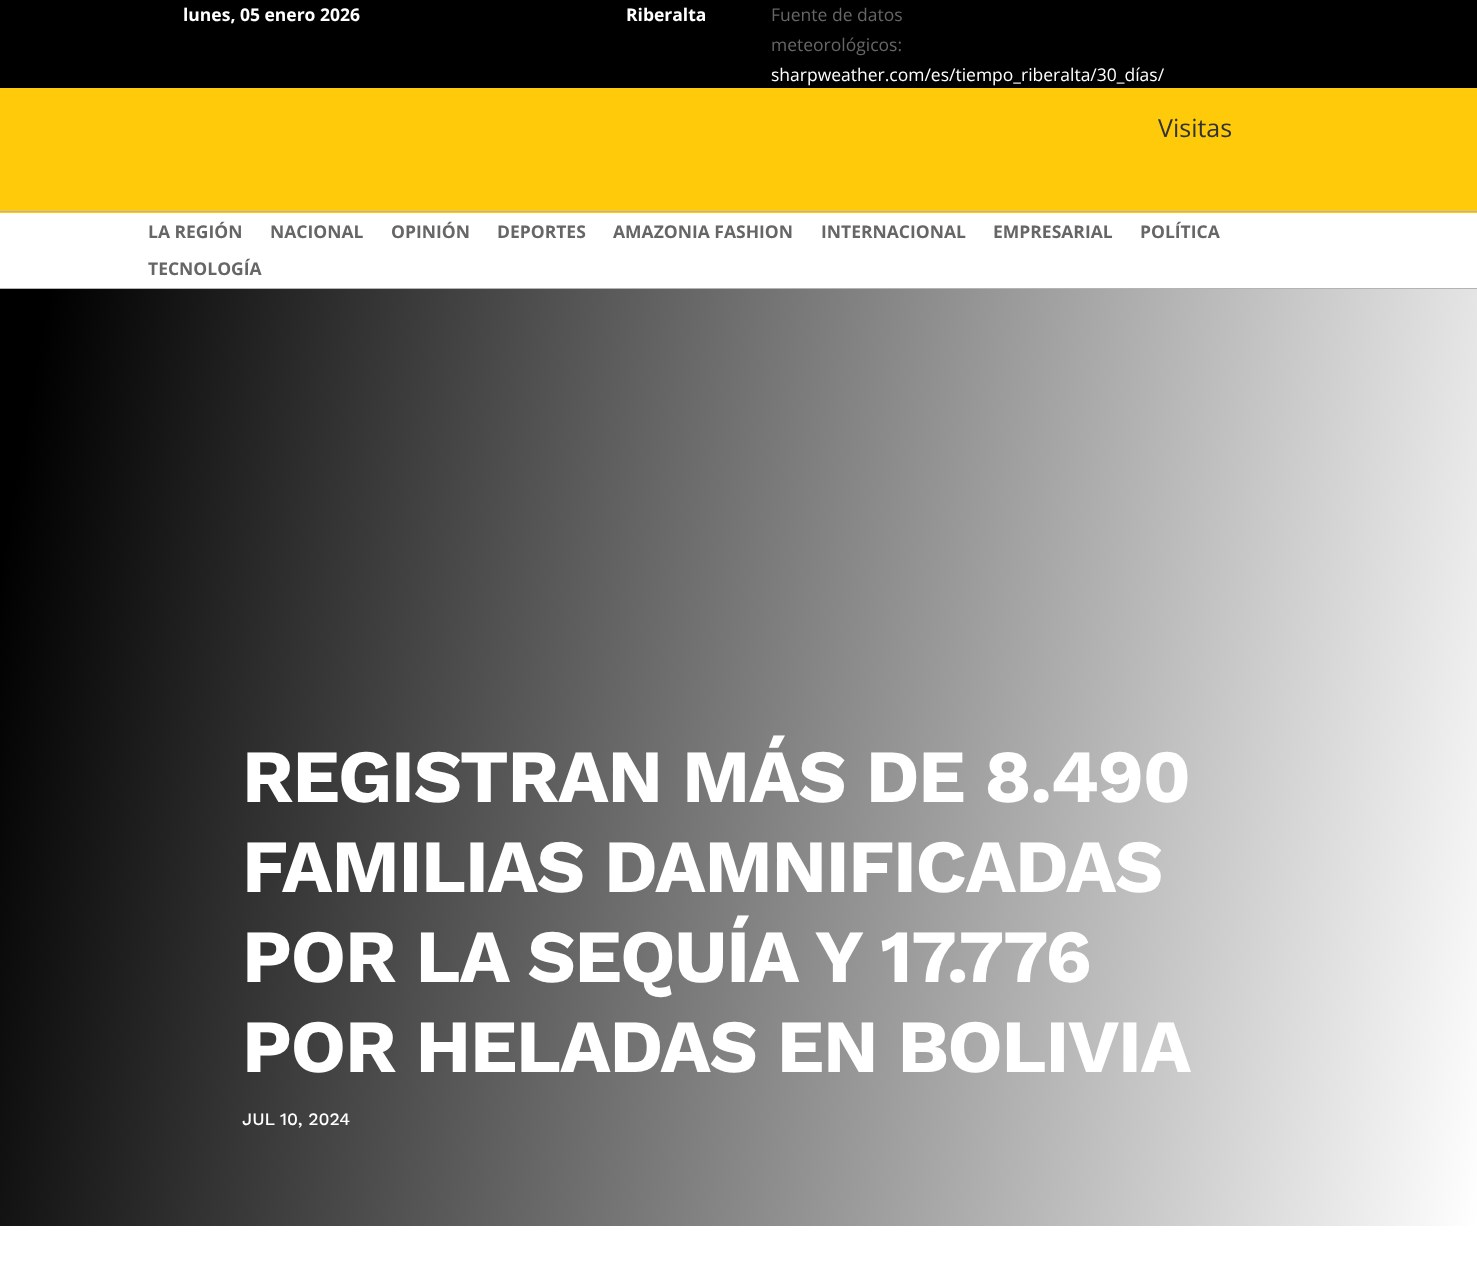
<!DOCTYPE html>
<meta charset="utf-8">
<style>body { margin: 0 } canvas { display: block }</style>
<canvas id="canvas" width="1477" height="1276"></canvas>
<script type="module">
  const canvas = document.getElementById("canvas");
  const ctx = canvas.getContext("2d");
  ctx.miterLimit = 4;
  ctx.fontKerning = "normal";
  let gradient;

  ctx.fillStyle = "#ffffff";
  ctx.fillRect(0, 0, 1477, 1276);
  ctx.fillStyle = "#000000";
  ctx.fillRect(0, 0, 1477, 88);
  ctx.font = "bold 17.5px Open Sans";
  ctx.fillStyle = "#ffffff";
  ctx.fillText("lunes, 05 enero 2026", 183, 21);
  ctx.fillText("Riberalta", 626, 21);
  ctx.font = "17.5px Open Sans";
  ctx.fillStyle = "#666666";
  ctx.fillText("Fuente de datos", 771, 21);
  ctx.fillText("meteorológicos:", 771, 51);
  ctx.fillStyle = "#ffffff";
  ctx.fillText("sharpweather.com/es/tiempo_riberalta/30_días/", 771, 81);
  ctx.fillStyle = "#feca0a";
  ctx.fillRect(0, 88, 1477, 125);
  ctx.font = "25px Open Sans";
  ctx.fillStyle = "#333333";
  ctx.fillText("Visitas", 1158, 137);
  ctx.fillStyle = "#b3b3b3";
  ctx.fillRect(0, 211, 1477, 1);
  ctx.fillRect(0, 288, 1477, 1);
  ctx.font = "bold 17.5px Open Sans";
  ctx.fillStyle = "#666666";
  ctx.fillText("LA REGIÓN", 148, 238);
  ctx.fillText("NACIONAL", 270, 238);
  ctx.fillText("OPINIÓN", 391, 238);
  ctx.fillText("DEPORTES", 497, 238);
  ctx.fillText("AMAZONIA FASHION", 613, 238);
  ctx.fillText("INTERNACIONAL", 821, 238);
  ctx.fillText("EMPRESARIAL", 993, 238);
  ctx.fillText("POLÍTICA", 1140, 238);
  ctx.fillText("TECNOLOGÍA", 148, 275);
  gradient = ctx.createLinearGradient(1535, 898, -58, 617);
  gradient.addColorStop(0, "#ffffff");
  gradient.addColorStop(0.97, "#000000");
  ctx.fillStyle = gradient;
  ctx.fillRect(0, 289, 1477, 937);
  ctx.letterSpacing = "-1.25px";
  ctx.font = "bold 75px Work Sans";
  ctx.fillStyle = "#ffffff";
  ctx.fillText("REGISTRAN MÁS DE 8.490", 242, 802);
  ctx.fillText("FAMILIAS DAMNIFICADAS", 242, 892);
  ctx.fillText("POR LA SEQUÍA Y 17.776", 242, 982);
  ctx.fillText("POR HELADAS EN BOLIVIA", 242, 1072);
  ctx.letterSpacing = "0px";
  ctx.font = "500 17.5px Work Sans";
  ctx.fillText("JUL 10, 2024", 242, 1125);
</script>
